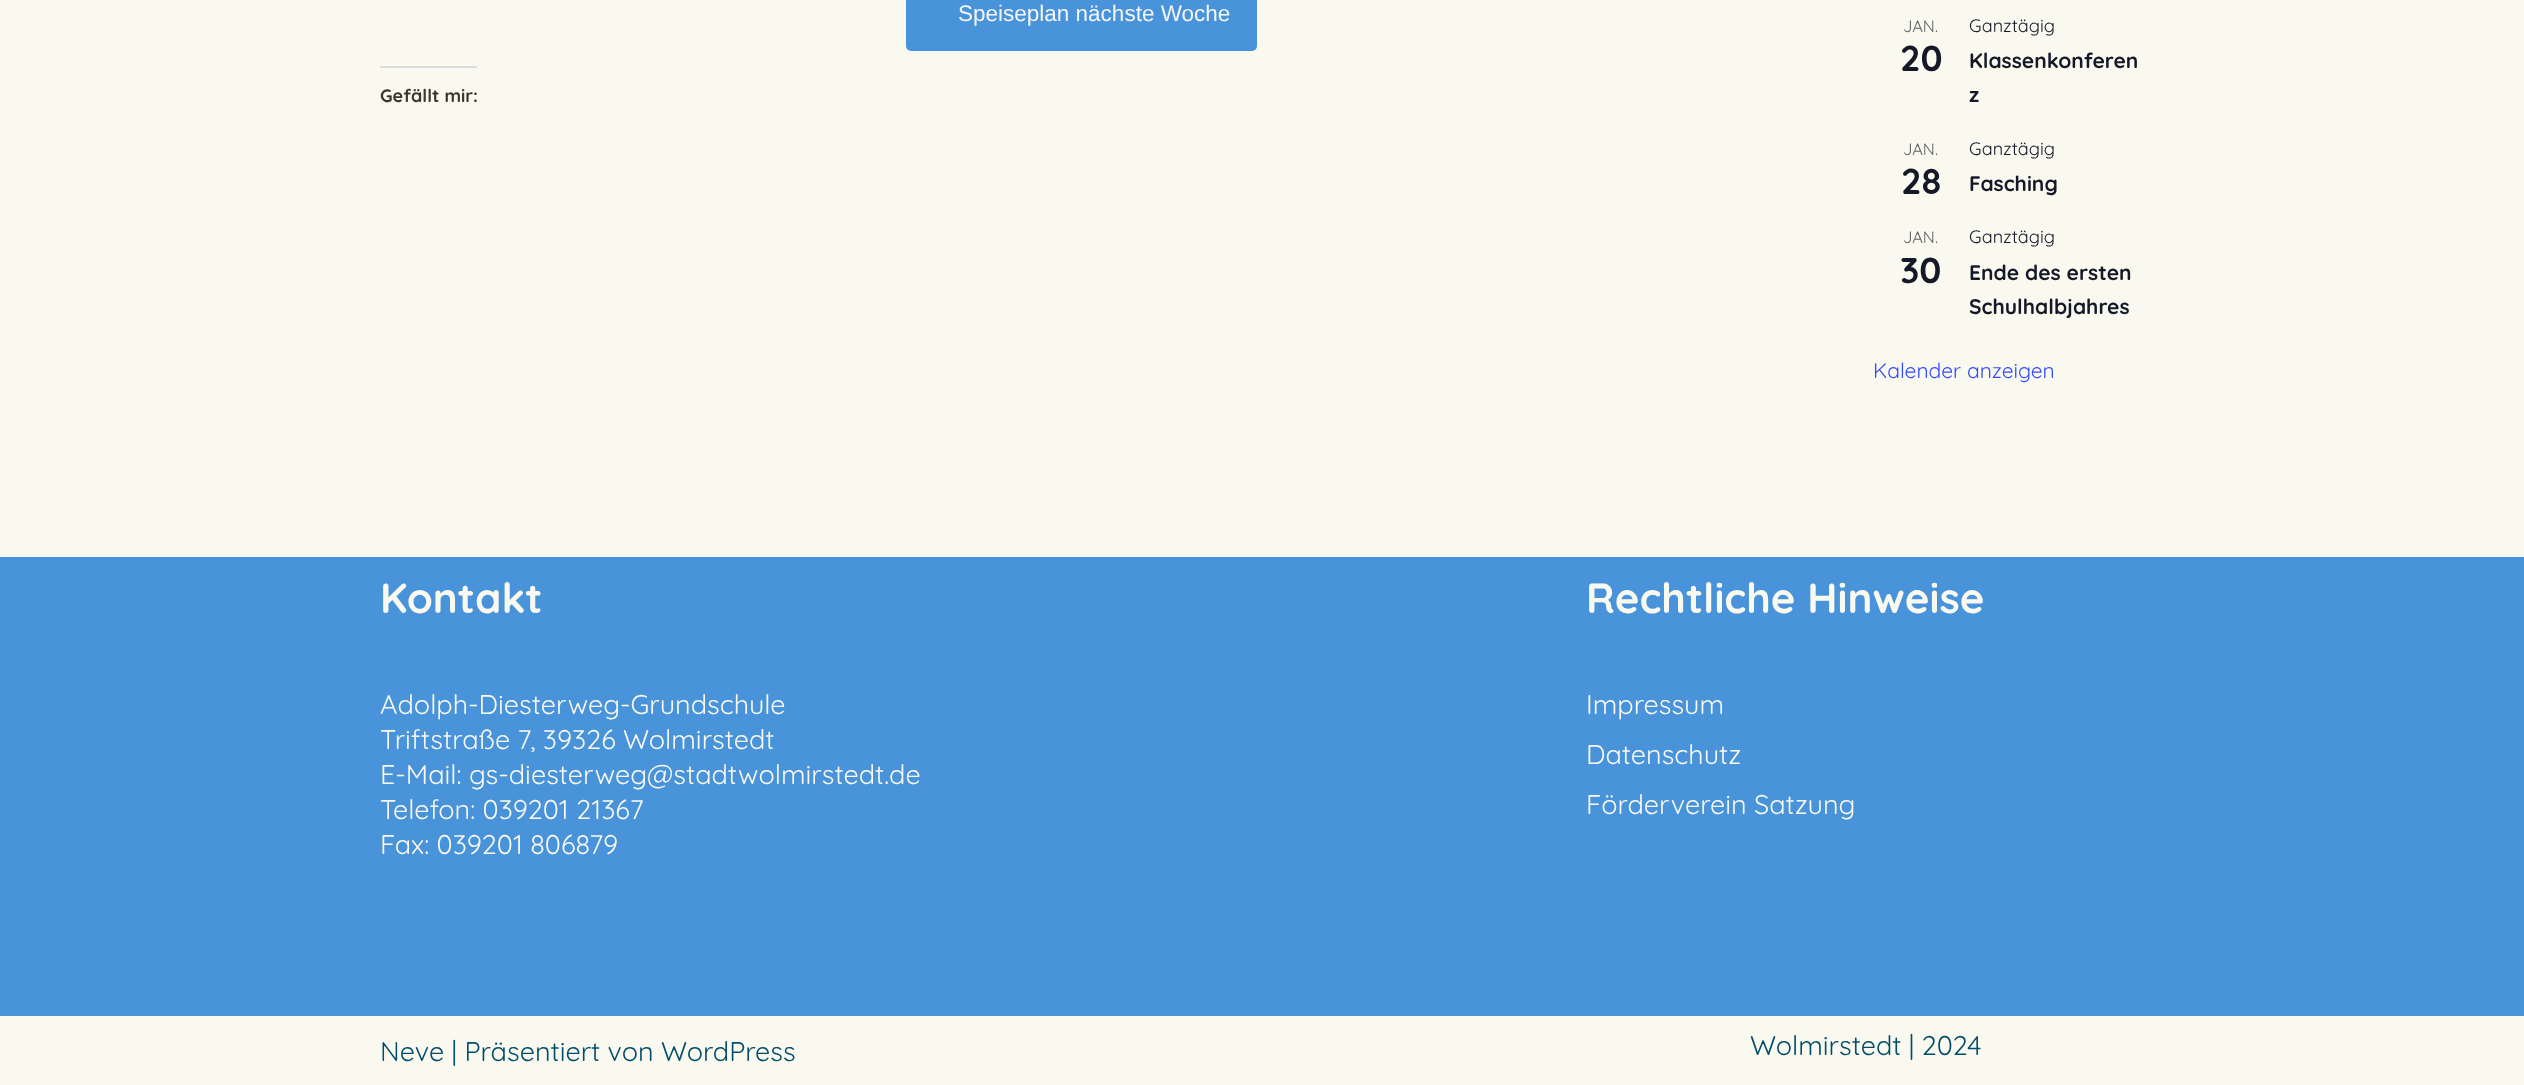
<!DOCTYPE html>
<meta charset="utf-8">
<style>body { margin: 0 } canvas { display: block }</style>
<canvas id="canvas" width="2524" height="1085"></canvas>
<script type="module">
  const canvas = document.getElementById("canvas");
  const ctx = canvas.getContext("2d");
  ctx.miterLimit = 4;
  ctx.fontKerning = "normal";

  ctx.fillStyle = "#f9f9f0";
  ctx.fillRect(0, 0, 2524, 1085);
  ctx.fillStyle = "#4893d9";
  ctx.beginPath();
  ctx.roundRect(906, -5, 351, 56, 5);
  ctx.fill();
  ctx.font = "22.5px Liberation Sans";
  ctx.fillStyle = "#f4f5f7";
  ctx.fillText("Speiseplan nächste Woche", 958, 21);
  ctx.fillStyle = "#dcdcde";
  ctx.fillRect(380, 66, 97, 2);
  ctx.font = "bold 18px Quicksand";
  ctx.fillStyle = "#393630";
  ctx.fillText("Gefällt mir:", 380, 102);
  ctx.font = "16.5px Quicksand";
  ctx.fillStyle = "#5d5d5d";
  ctx.fillText("JAN.", 1903, 32);
  ctx.font = "bold 36px Quicksand";
  ctx.fillStyle = "#141827";
  ctx.fillText("20", 1900, 71);
  ctx.font = "18px Quicksand";
  ctx.fillText("Ganztägig", 1969, 32);
  ctx.font = "bold 21px Quicksand";
  ctx.fillText("Klassenkonferen", 1969, 68);
  ctx.fillText("z", 1969, 102);
  ctx.font = "16.5px Quicksand";
  ctx.fillStyle = "#5d5d5d";
  ctx.fillText("JAN.", 1903, 155);
  ctx.font = "bold 36px Quicksand";
  ctx.fillStyle = "#141827";
  ctx.fillText("28", 1901, 194);
  ctx.font = "18px Quicksand";
  ctx.fillText("Ganztägig", 1969, 155);
  ctx.font = "bold 21px Quicksand";
  ctx.fillText("Fasching", 1969, 191);
  ctx.font = "16.5px Quicksand";
  ctx.fillStyle = "#5d5d5d";
  ctx.fillText("JAN.", 1903, 243);
  ctx.font = "bold 36px Quicksand";
  ctx.fillStyle = "#141827";
  ctx.fillText("30", 1900, 283);
  ctx.font = "18px Quicksand";
  ctx.fillText("Ganztägig", 1969, 243);
  ctx.font = "bold 21px Quicksand";
  ctx.fillText("Ende des ersten", 1969, 280);
  ctx.fillText("Schulhalbjahres", 1969, 314);
  ctx.font = "21px Quicksand";
  ctx.fillStyle = "#334aff";
  ctx.fillText("Kalender anzeigen", 1873, 378);
  ctx.fillStyle = "#4893d9";
  ctx.fillRect(0, 557, 2524, 459);
  ctx.font = "bold 42px Quicksand";
  ctx.fillStyle = "#f9f9f0";
  ctx.fillText("Kontakt", 380, 613);
  ctx.font = "27px Quicksand";
  ctx.fillText("Adolph-Diesterweg-Grundschule", 380, 714);
  ctx.fillText("Triftstraße 7, 39326 Wolmirstedt", 380, 749);
  ctx.fillText("E-Mail: gs-diesterweg@stadtwolmirstedt.de", 380, 784);
  ctx.fillText("Telefon: 039201 21367", 380, 819);
  ctx.fillText("Fax: 039201 806879", 380, 854);
  ctx.font = "bold 42px Quicksand";
  ctx.fillText("Rechtliche Hinweise", 1586, 613);
  ctx.font = "27px Quicksand";
  ctx.fillText("Impressum", 1586, 714);
  ctx.fillText("Datenschutz", 1586, 764);
  ctx.fillText("Förderverein Satzung", 1586, 814);
  ctx.fillStyle = "#014c69";
  ctx.fillText("Neve | Präsentiert von WordPress", 380, 1061);
  ctx.fillText("Wolmirstedt | 2024", 1750, 1055);
</script>
